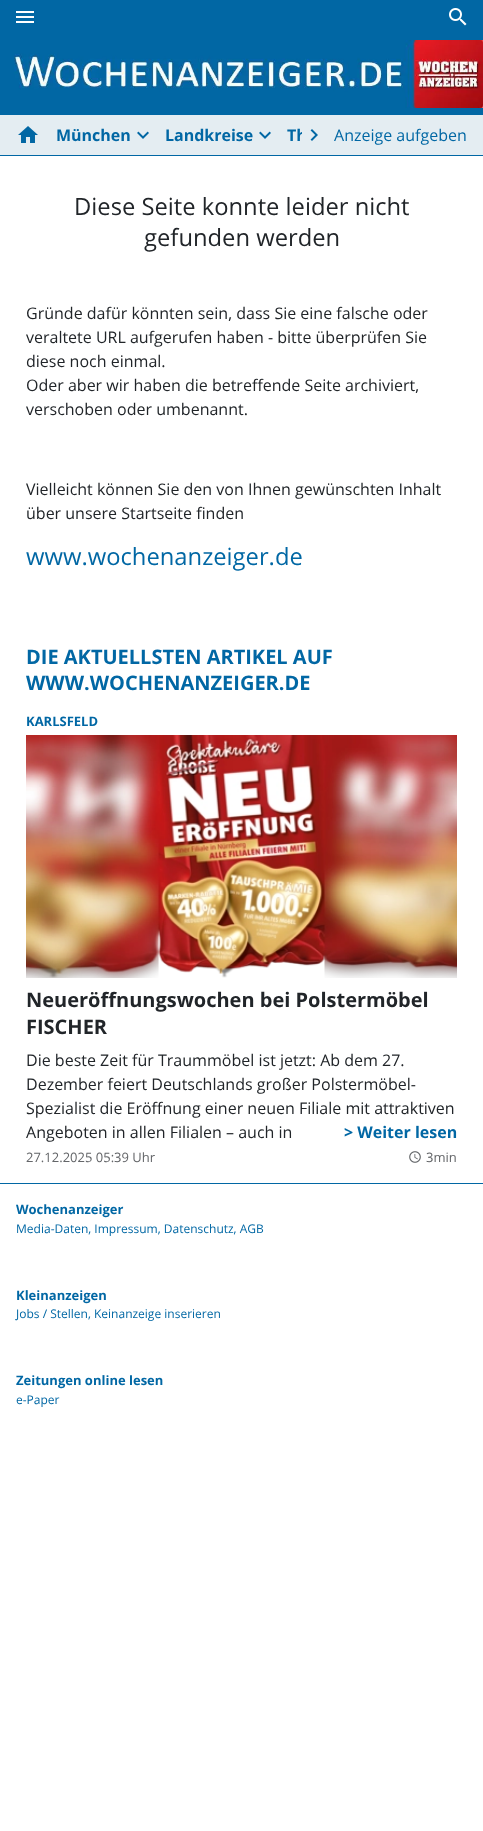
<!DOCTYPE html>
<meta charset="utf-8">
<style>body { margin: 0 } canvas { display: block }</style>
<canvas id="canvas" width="483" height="1831"></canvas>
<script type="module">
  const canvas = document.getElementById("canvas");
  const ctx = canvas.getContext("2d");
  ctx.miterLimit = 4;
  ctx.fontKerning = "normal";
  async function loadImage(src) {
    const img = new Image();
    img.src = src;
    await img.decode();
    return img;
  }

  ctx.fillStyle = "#ffffff";
  ctx.fillRect(0, 0, 483, 1831);
  ctx.fillStyle = "#0167a4";
  ctx.fillRect(0, 0, 483, 115);
  ctx.drawImage(await loadImage("img1.png"), 14, 40, 469, 68);
  ctx.drawImage(await loadImage("img2.png"), 16, 11, 18, 12);
  ctx.drawImage(await loadImage("img3.png"), 449, 8, 18, 18);
  ctx.fillStyle = "#e4edf2";
  ctx.fillRect(0, 115, 483, 40);
  ctx.drawImage(await loadImage("img4.png"), 18, 126, 20, 17);
  ctx.font = "bold 16px Open Sans";
  ctx.fillStyle = "#0167a4";
  ctx.fillText("München", 56, 141);
  ctx.drawImage(await loadImage("img5.png"), 137, 131, 12, 8);
  ctx.fillText("Landkreise", 165, 141);
  ctx.drawImage(await loadImage("img5.png"), 259, 131, 12, 8);
  ctx.fillText("Th", 287, 141);
  ctx.fillStyle = "#e4edf2";
  ctx.fillRect(302, 132, 4, 9);
  ctx.drawImage(await loadImage("img6.png"), 310, 129, 8, 12);
  ctx.font = "16px Open Sans";
  ctx.fillStyle = "#0167a4";
  ctx.fillText("Anzeige aufgeben", 334, 141);
  ctx.fillRect(0, 155, 483, 1);
  ctx.font = "23.75px Open Sans";
  ctx.fillStyle = "#212529";
  ctx.fillText("Diese Seite konnte leider nicht", 74, 215);
  ctx.fillText("gefunden werden", 144, 246);
  ctx.font = "16px Open Sans";
  ctx.fillText("Gründe dafür könnten sein, dass Sie eine falsche oder", 26, 319);
  ctx.fillText("veraltete URL aufgerufen haben - bitte überprüfen Sie", 26, 343);
  ctx.fillText("diese noch einmal.", 26, 367);
  ctx.fillText("Oder aber wir haben die betreffende Seite archiviert,", 26, 391);
  ctx.fillText("verschoben oder umbenannt.", 26, 415);
  ctx.fillText("Vielleicht können Sie den von Ihnen gewünschten Inhalt", 26, 495);
  ctx.fillText("über unsere Startseite finden", 26, 519);
  ctx.font = "23.75px Open Sans";
  ctx.fillStyle = "#0167a4";
  ctx.fillText("www.wochenanzeiger.de", 26, 565);
  ctx.font = "bold 20px Open Sans";
  ctx.fillText("DIE AKTUELLSTEN ARTIKEL AUF", 26, 664);
  ctx.fillText("WWW.WOCHENANZEIGER.DE", 26, 690);
  ctx.font = "bold 13px Open Sans";
  ctx.fillText("KARLSFELD", 26, 726);
  ctx.drawImage(await loadImage("img7.png"), 26, 735, 431, 243);
  ctx.font = "bold 20px Open Sans";
  ctx.fillStyle = "#212529";
  ctx.fillText("Neueröffnungswochen bei Polstermöbel", 26, 1007);
  ctx.fillText("FISCHER", 26, 1034);
  ctx.font = "16px Open Sans";
  ctx.fillText("Die beste Zeit für Traummöbel ist jetzt: Ab dem 27.", 26, 1066);
  ctx.fillText("Dezember feiert Deutschlands großer Polstermöbel-", 26, 1090);
  ctx.fillText("Spezialist die Eröffnung einer neuen Filiale mit attraktiven", 26, 1114);
  ctx.fillText("Angeboten in allen Filialen – auch in", 26, 1138);
  ctx.font = "bold 16px Open Sans";
  ctx.fillStyle = "#0167a4";
  ctx.fillText("> Weiter lesen", 344, 1138);
  ctx.font = "13px Open Sans";
  ctx.fillStyle = "#646669";
  ctx.fillText("27.12.2025 05:39 Uhr", 26, 1162);
  ctx.drawImage(await loadImage("img8.png"), 409, 1151, 12, 12);
  ctx.fillText("3min", 426, 1162);
  ctx.fillStyle = "#0167a4";
  ctx.fillRect(0, 1183, 483, 1);
  ctx.font = "bold 13px Open Sans";
  ctx.fillText("Wochenanzeiger", 16, 1214);
  ctx.font = "12px Open Sans";
  ctx.fillText("Media-Daten, Impressum, Datenschutz, AGB", 16, 1233);
  ctx.font = "bold 13px Open Sans";
  ctx.fillText("Kleinanzeigen", 16, 1300);
  ctx.font = "12px Open Sans";
  ctx.fillText("Jobs / Stellen, Keinanzeige inserieren", 16, 1318);
  ctx.font = "bold 13px Open Sans";
  ctx.fillText("Zeitungen online lesen", 16, 1385);
  ctx.font = "12px Open Sans";
  ctx.fillText("e-Paper", 16, 1404);
</script>
